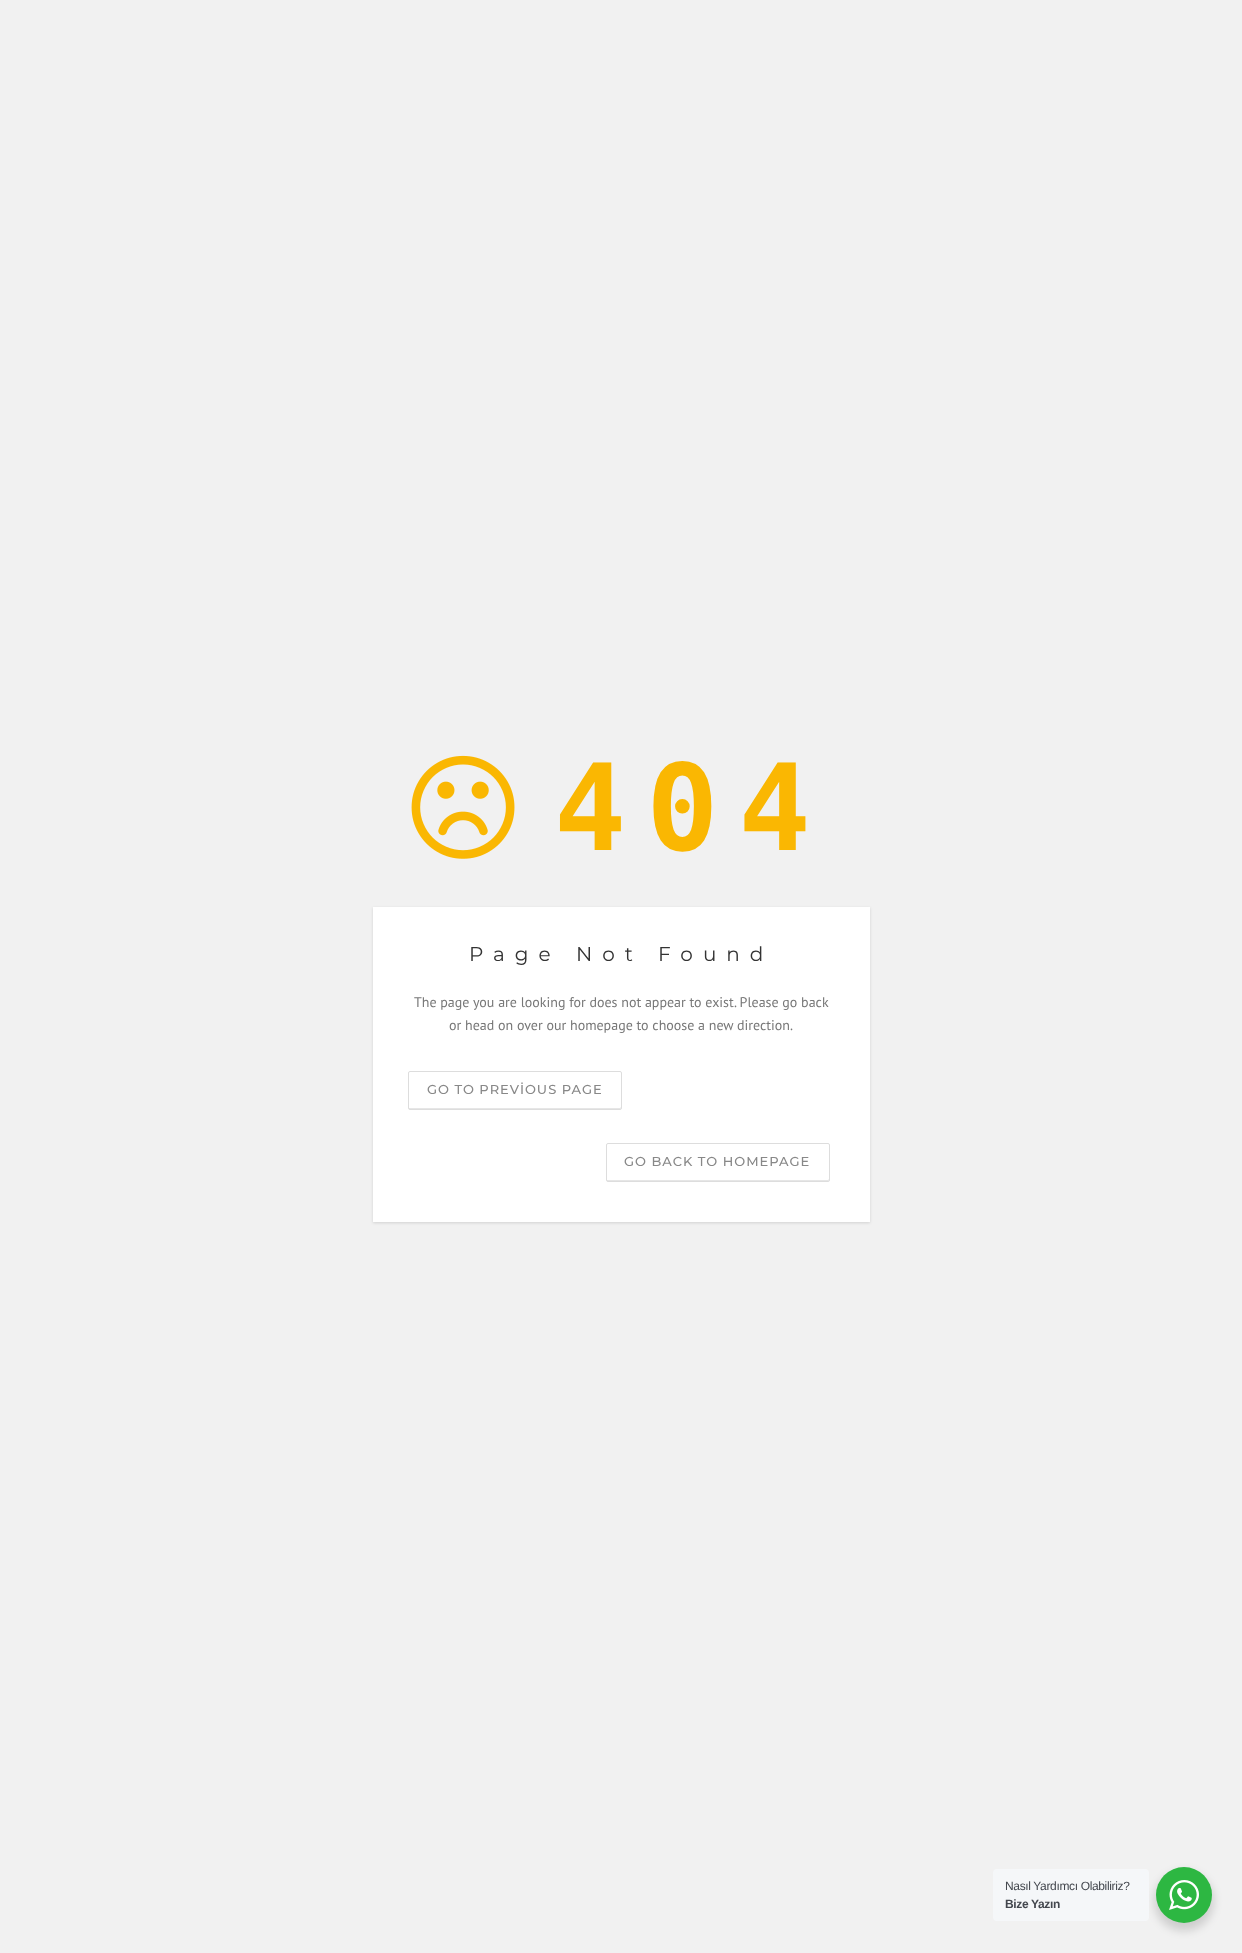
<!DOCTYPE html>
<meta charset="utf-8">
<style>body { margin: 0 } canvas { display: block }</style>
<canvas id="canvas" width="1242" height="1953"></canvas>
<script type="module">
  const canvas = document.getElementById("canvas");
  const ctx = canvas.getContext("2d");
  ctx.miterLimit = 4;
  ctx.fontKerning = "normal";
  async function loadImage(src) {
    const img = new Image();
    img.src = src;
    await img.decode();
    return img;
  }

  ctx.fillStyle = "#f1f1f1";
  ctx.fillRect(0, 0, 1242, 1953);
  ctx.drawImage(await loadImage("img1.png"), 411, 755, 104, 104);
  ctx.letterSpacing = "20px";
  ctx.font = "bold 120px DejaVu Sans Mono";
  ctx.fillStyle = "#fab702";
  ctx.fillText("404", 554, 850);
  ctx.fillStyle = "rgba(0, 0, 0, 0.13)";
  ctx.filter = "blur(1.5px)";
  ctx.beginPath();
  ctx.rect(373, 908, 497, 315);
  ctx.fill();
  ctx.filter = "none";
  ctx.fillStyle = "#ffffff";
  ctx.fillRect(373, 907, 497, 315);
  ctx.letterSpacing = "10px";
  ctx.font = "20px Montserrat";
  ctx.fillStyle = "#333333";
  ctx.fillText("Page Not Found", 469, 961);
  ctx.letterSpacing = "0px";
  ctx.font = "14px PT Sans";
  ctx.fillStyle = "#777777";
  ctx.fillText("The page you are looking for does not appear to exist. Please go back", 414, 1007);
  ctx.fillText("or head on over our homepage to choose a new direction.", 449, 1030);
  ctx.fillStyle = "#e6e6e6";
  ctx.beginPath();
  ctx.moveTo(409, 1107);
  ctx.lineTo(409, 1109);
  ctx.lineTo(410, 1109);
  ctx.lineTo(620, 1109);
  ctx.bezierCurveTo(621, 1109, 621, 1108, 621, 1107);
  ctx.lineTo(620, 1108);
  ctx.lineTo(409, 1108);
  ctx.closePath();
  ctx.fill();
  ctx.beginPath();
  ctx.roundRect(408.5, 1071.5, 213, 38, 1.5);
  ctx.strokeStyle = "#dddddd";
  ctx.stroke();
  ctx.letterSpacing = "1px";
  ctx.font = "500 13px Montserrat";
  ctx.fillStyle = "#888888";
  ctx.fillText("GO TO PREVİOUS PAGE", 427, 1094);
  ctx.fillStyle = "#e6e6e6";
  ctx.beginPath();
  ctx.moveTo(607, 1179);
  ctx.lineTo(607, 1181);
  ctx.lineTo(828, 1181);
  ctx.bezierCurveTo(829, 1181, 829, 1180, 829, 1179);
  ctx.lineTo(828, 1180);
  ctx.lineTo(607, 1180);
  ctx.closePath();
  ctx.fill();
  ctx.beginPath();
  ctx.roundRect(606.5, 1143.5, 223, 38, 1.5);
  ctx.stroke();
  ctx.fillStyle = "#888888";
  ctx.fillText("GO BACK TO HOMEPAGE", 624, 1166);
  ctx.fillStyle = "rgba(0, 0, 0, 0.14)";
  ctx.filter = "blur(4px)";
  ctx.beginPath();
  ctx.roundRect(1154, 1871, 60, 60, 30);
  ctx.fill();
  ctx.filter = "none";
  ctx.fillStyle = "#f5f7f9";
  ctx.beginPath();
  ctx.roundRect(993, 1869, 156, 52, 4);
  ctx.fill();
  ctx.letterSpacing = "-0.35px";
  ctx.font = "12px Liberation Sans";
  ctx.fillStyle = "#43474e";
  ctx.fillText("Nasıl Yardımcı Olabiliriz?", 1005, 1890);
  ctx.font = "bold 12px Liberation Sans";
  ctx.fillText("Bize Yazın", 1005, 1908);
  ctx.fillStyle = "#2db742";
  ctx.beginPath();
  ctx.arc(1184, 1895, 28, 0, Math.PI * 2);
  ctx.fill();
  ctx.drawImage(await loadImage("img2.png"), 1169, 1880, 30, 30);
</script>
